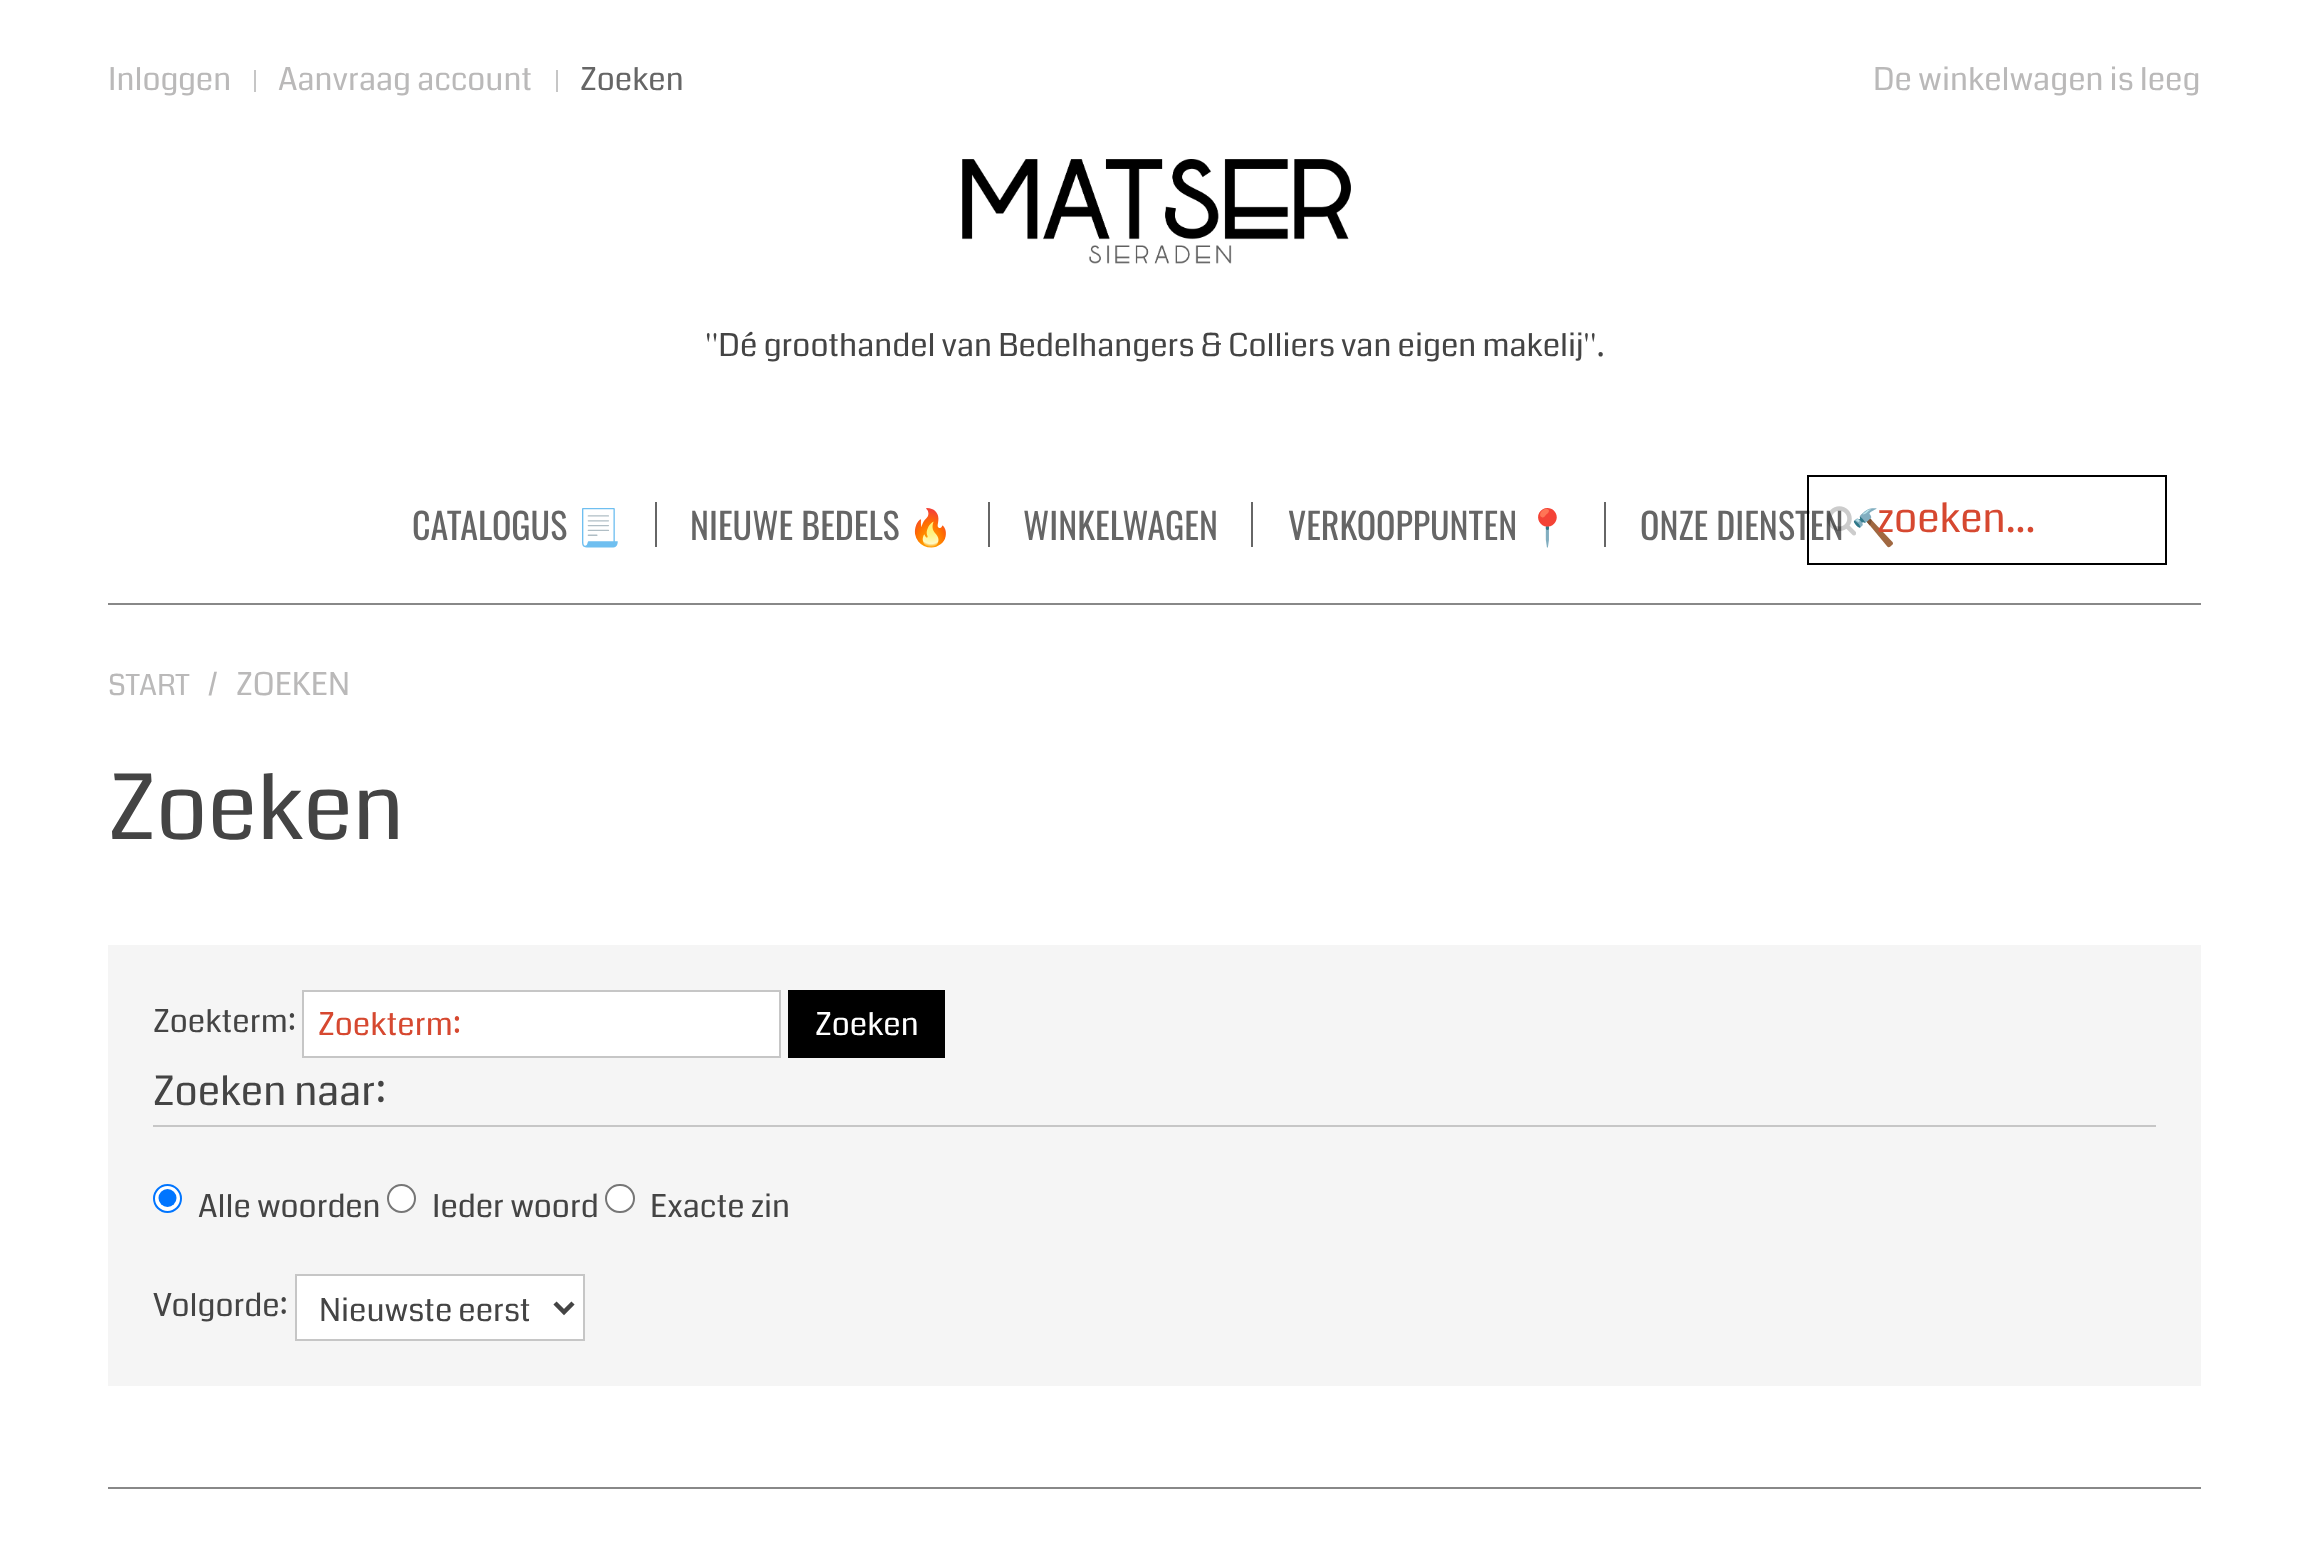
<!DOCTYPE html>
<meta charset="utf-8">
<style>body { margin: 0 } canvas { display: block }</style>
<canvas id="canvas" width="2307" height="1547"></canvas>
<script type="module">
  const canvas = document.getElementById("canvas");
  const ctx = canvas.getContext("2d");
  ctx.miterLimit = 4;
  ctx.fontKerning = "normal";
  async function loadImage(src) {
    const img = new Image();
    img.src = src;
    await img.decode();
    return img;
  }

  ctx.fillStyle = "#ffffff";
  ctx.fillRect(0, 0, 2307, 1547);
  ctx.font = "31.5px Coda";
  ctx.fillStyle = "#bab9b9";
  ctx.fillText("Inloggen", 108, 90);
  ctx.fillStyle = "#c6c6c6";
  ctx.fillRect(254, 70, 2, 22);
  ctx.fillStyle = "#bab9b9";
  ctx.fillText("Aanvraag account", 278, 90);
  ctx.fillStyle = "#c6c6c6";
  ctx.fillRect(556, 70, 2, 22);
  ctx.fillStyle = "#666666";
  ctx.fillText("Zoeken", 580, 90);
  ctx.fillStyle = "#bab9b9";
  ctx.fillText("De winkelwagen is leeg", 1873, 90);
  ctx.drawImage(await loadImage("img1.png"), 962, 159, 389, 105);
  ctx.fillStyle = "#444444";
  ctx.fillText("''Dé groothandel van Bedelhangers & Colliers van eigen makelij''.", 705, 356);
  ctx.fillStyle = "#888888";
  ctx.fillRect(108, 603, 2093, 2);
  ctx.fillStyle = "#666666";
  ctx.fillRect(655, 502, 2, 45);
  ctx.font = "36px Oswald";
  ctx.fillText("CATALOGUS", 412, 540);
  ctx.font = "36px Noto Color Emoji";
  ctx.fillText("📃", 576, 540);
  ctx.fillRect(988, 502, 2, 45);
  ctx.font = "36px Oswald";
  ctx.fillText("NIEUWE BEDELS", 690, 540);
  ctx.font = "36px Noto Color Emoji";
  ctx.fillText("🔥", 908, 540);
  ctx.fillRect(1251, 502, 2, 45);
  ctx.font = "36px Oswald";
  ctx.fillText("WINKELWAGEN", 1023, 540);
  ctx.fillRect(1604, 502, 2, 45);
  ctx.fillText("VERKOOPPUNTEN", 1288, 540);
  ctx.font = "36px Noto Color Emoji";
  ctx.fillText("📍", 1525, 540);
  ctx.font = "36px Oswald";
  ctx.fillText("ONZE DIENSTEN", 1640, 540);
  ctx.font = "36px Noto Color Emoji";
  ctx.fillText("🔨", 1851, 540);
  ctx.strokeStyle = "#000000";
  ctx.lineWidth = 2;
  ctx.strokeRect(1808, 476, 358, 88);
  ctx.drawImage(await loadImage("img2.png"), 1827, 506, 29, 30);
  ctx.font = "40.5px Coda";
  ctx.fillStyle = "#d64830";
  ctx.fillText("zoeken...", 1877, 532);
  ctx.font = "29px Coda";
  ctx.fillStyle = "#bab9b9";
  ctx.fillText("START", 108, 695);
  ctx.font = "31.5px Coda";
  ctx.fillText("/", 208, 695);
  ctx.fillText("ZOEKEN", 236, 695);
  ctx.font = "90px Coda";
  ctx.fillStyle = "#444444";
  ctx.fillText("Zoeken", 108, 839);
  ctx.fillStyle = "#f5f5f5";
  ctx.fillRect(108, 945, 2093, 441);
  ctx.font = "31.5px Coda";
  ctx.fillStyle = "#444444";
  ctx.fillText("Zoekterm:", 153, 1032);
  ctx.fillStyle = "#ffffff";
  ctx.beginPath();
  ctx.rect(303, 991, 477, 66);
  ctx.fill();
  ctx.strokeStyle = "#c6c6c6";
  ctx.stroke();
  ctx.fillStyle = "#d64830";
  ctx.fillText("Zoekterm:", 318, 1035);
  ctx.fillStyle = "#000000";
  ctx.fillRect(788, 990, 157, 68);
  ctx.fillStyle = "#ffffff";
  ctx.fillText("Zoeken", 815, 1035);
  ctx.font = "40.5px Coda";
  ctx.fillStyle = "#444444";
  ctx.fillText("Zoeken naar:", 153, 1105);
  ctx.fillStyle = "#c6c6c6";
  ctx.fillRect(153, 1125, 2003, 2);
  ctx.fillStyle = "#ffffff";
  ctx.beginPath();
  ctx.arc(167.5, 1198.5, 13.5, 0, Math.PI * 2);
  ctx.fill();
  ctx.strokeStyle = "#0075ff";
  ctx.stroke();
  ctx.fillStyle = "#0075ff";
  ctx.beginPath();
  ctx.arc(167.5, 1198, 9, 0, Math.PI * 2);
  ctx.fill();
  ctx.font = "31.5px Coda";
  ctx.fillStyle = "#444444";
  ctx.fillText("Alle woorden", 198, 1217);
  ctx.fillStyle = "#ffffff";
  ctx.beginPath();
  ctx.arc(401.5, 1198.5, 13.5, 0, Math.PI * 2);
  ctx.fill();
  ctx.strokeStyle = "#767676";
  ctx.stroke();
  ctx.fillStyle = "#444444";
  ctx.fillText("Ieder woord", 432, 1217);
  ctx.fillStyle = "#ffffff";
  ctx.beginPath();
  ctx.roundRect(606, 1185, 28, 27, 13.5);
  ctx.fill();
  ctx.stroke();
  ctx.fillStyle = "#444444";
  ctx.fillText("Exacte zin", 650, 1217);
  ctx.fillText("Volgorde:", 153, 1316);
  ctx.fillStyle = "#ffffff";
  ctx.beginPath();
  ctx.rect(296, 1275, 288, 65);
  ctx.fill();
  ctx.strokeStyle = "#c6c6c6";
  ctx.stroke();
  ctx.beginPath();
  ctx.moveTo(555, 1303);
  ctx.lineTo(564, 1312);
  ctx.lineTo(573, 1303);
  ctx.strokeStyle = "#444444";
  ctx.lineWidth = 4.5;
  ctx.stroke();
  ctx.fillStyle = "#444444";
  ctx.fillText("Nieuwste eerst", 319, 1321);
  ctx.fillStyle = "#888888";
  ctx.fillRect(108, 1487, 2093, 2);
</script>
